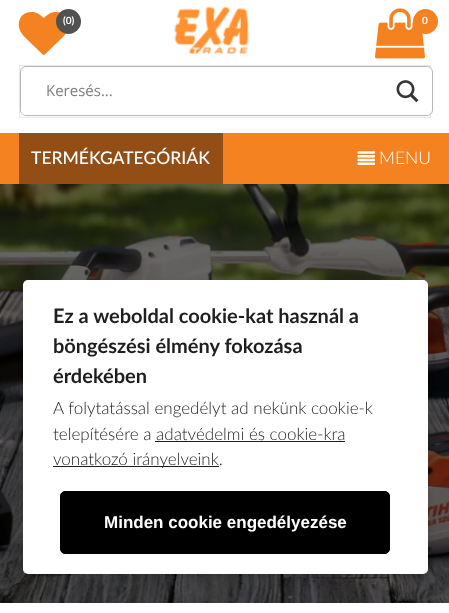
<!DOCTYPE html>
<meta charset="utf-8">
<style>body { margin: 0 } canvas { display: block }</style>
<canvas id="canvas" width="449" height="613"></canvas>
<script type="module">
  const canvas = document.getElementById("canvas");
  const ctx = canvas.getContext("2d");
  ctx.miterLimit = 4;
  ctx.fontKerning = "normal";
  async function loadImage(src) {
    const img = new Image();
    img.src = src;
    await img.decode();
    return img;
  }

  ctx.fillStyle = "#ffffff";
  ctx.fillRect(0, 0, 449, 613);
  ctx.drawImage(await loadImage("img1.png"), 174, 6, 75, 48);
  ctx.drawImage(await loadImage("img2.png"), 18, 12, 48, 43);
  ctx.fillStyle = "#515151";
  ctx.beginPath();
  ctx.arc(68.5, 21.5, 12.5, 0, Math.PI * 2);
  ctx.fill();
  ctx.font = "bold 10px Lato";
  ctx.fillStyle = "#ffffff";
  ctx.fillText("(0)", 63, 24);
  ctx.drawImage(await loadImage("img3.png"), 375, 8, 50, 51);
  ctx.fillStyle = "#f48221";
  ctx.beginPath();
  ctx.arc(425.5, 21.5, 12.5, 0, Math.PI * 2);
  ctx.fill();
  ctx.fillStyle = "#ffffff";
  ctx.fillText("0", 422, 24);
  ctx.strokeStyle = "#e7e7e7";
  ctx.strokeRect(19.5, 65.5, 411, 52);
  ctx.beginPath();
  ctx.roundRect(20.5, 66.5, 412, 49, 5.5);
  ctx.fill();
  ctx.strokeStyle = "#b6b6b6";
  ctx.stroke();
  ctx.beginPath();
  ctx.roundRect(21, 68, 410, 47, 5);
  ctx.fill();
  ctx.font = "15px Open Sans";
  ctx.fillStyle = "#7d7d7d";
  ctx.fillText("Keresés...", 46, 96);
  ctx.drawImage(await loadImage("img4.png"), 396, 80, 23, 23);
  ctx.fillStyle = "#f48221";
  ctx.fillRect(0, 133, 449, 51);
  ctx.fillStyle = "#924e14";
  ctx.fillRect(19, 133, 204, 51);
  ctx.font = "500 17.5px Lato";
  ctx.fillStyle = "#ffffff";
  ctx.fillText("TERMÉKGATEGÓRIÁK", 31, 164);
  ctx.drawImage(await loadImage("img5.png"), 357, 151, 18, 14);
  ctx.font = "300 17.5px Lato";
  ctx.fillText("MENU", 379, 164);
  ctx.drawImage(await loadImage("img6.png"), 0, 184, 449, 419);
  ctx.fillStyle = "rgba(0, 0, 0, 0.1)";
  ctx.filter = "blur(3px)";
  ctx.beginPath();
  ctx.roundRect(24, 283, 405, 293, 5);
  ctx.fill();
  ctx.filter = "none";
  ctx.fillStyle = "#ffffff";
  ctx.beginPath();
  ctx.roundRect(23, 280, 405, 294, 5);
  ctx.fill();
  ctx.font = "bold 20px Lato";
  ctx.fillStyle = "#1e1e1e";
  ctx.fillText("Ez a weboldal cookie-kat használ a", 53, 323);
  ctx.fillText("böngészési élmény fokozása", 53, 353);
  ctx.fillText("érdekében", 53, 383);
  ctx.font = "300 17px Lato";
  ctx.fillText("A folytatással engedélyt ad nekünk cookie-k", 53, 414);
  ctx.fillText("telepítésére a adatvédelmi és cookie-kra", 53, 440);
  ctx.fillRect(53, 466, 166, 1);
  ctx.fillText("vonatkozó irányelveink.", 53, 465);
  ctx.fillRect(155, 441, 190, 1);
  ctx.fillStyle = "#000000";
  ctx.beginPath();
  ctx.roundRect(60.5, 491.5, 329, 62, 4.5);
  ctx.fill();
  ctx.strokeStyle = "#000000";
  ctx.stroke();
  ctx.font = "bold 17px Liberation Sans";
  ctx.fillStyle = "#ffffff";
  ctx.fillText("Minden cookie engedélyezése", 104, 528);
</script>
